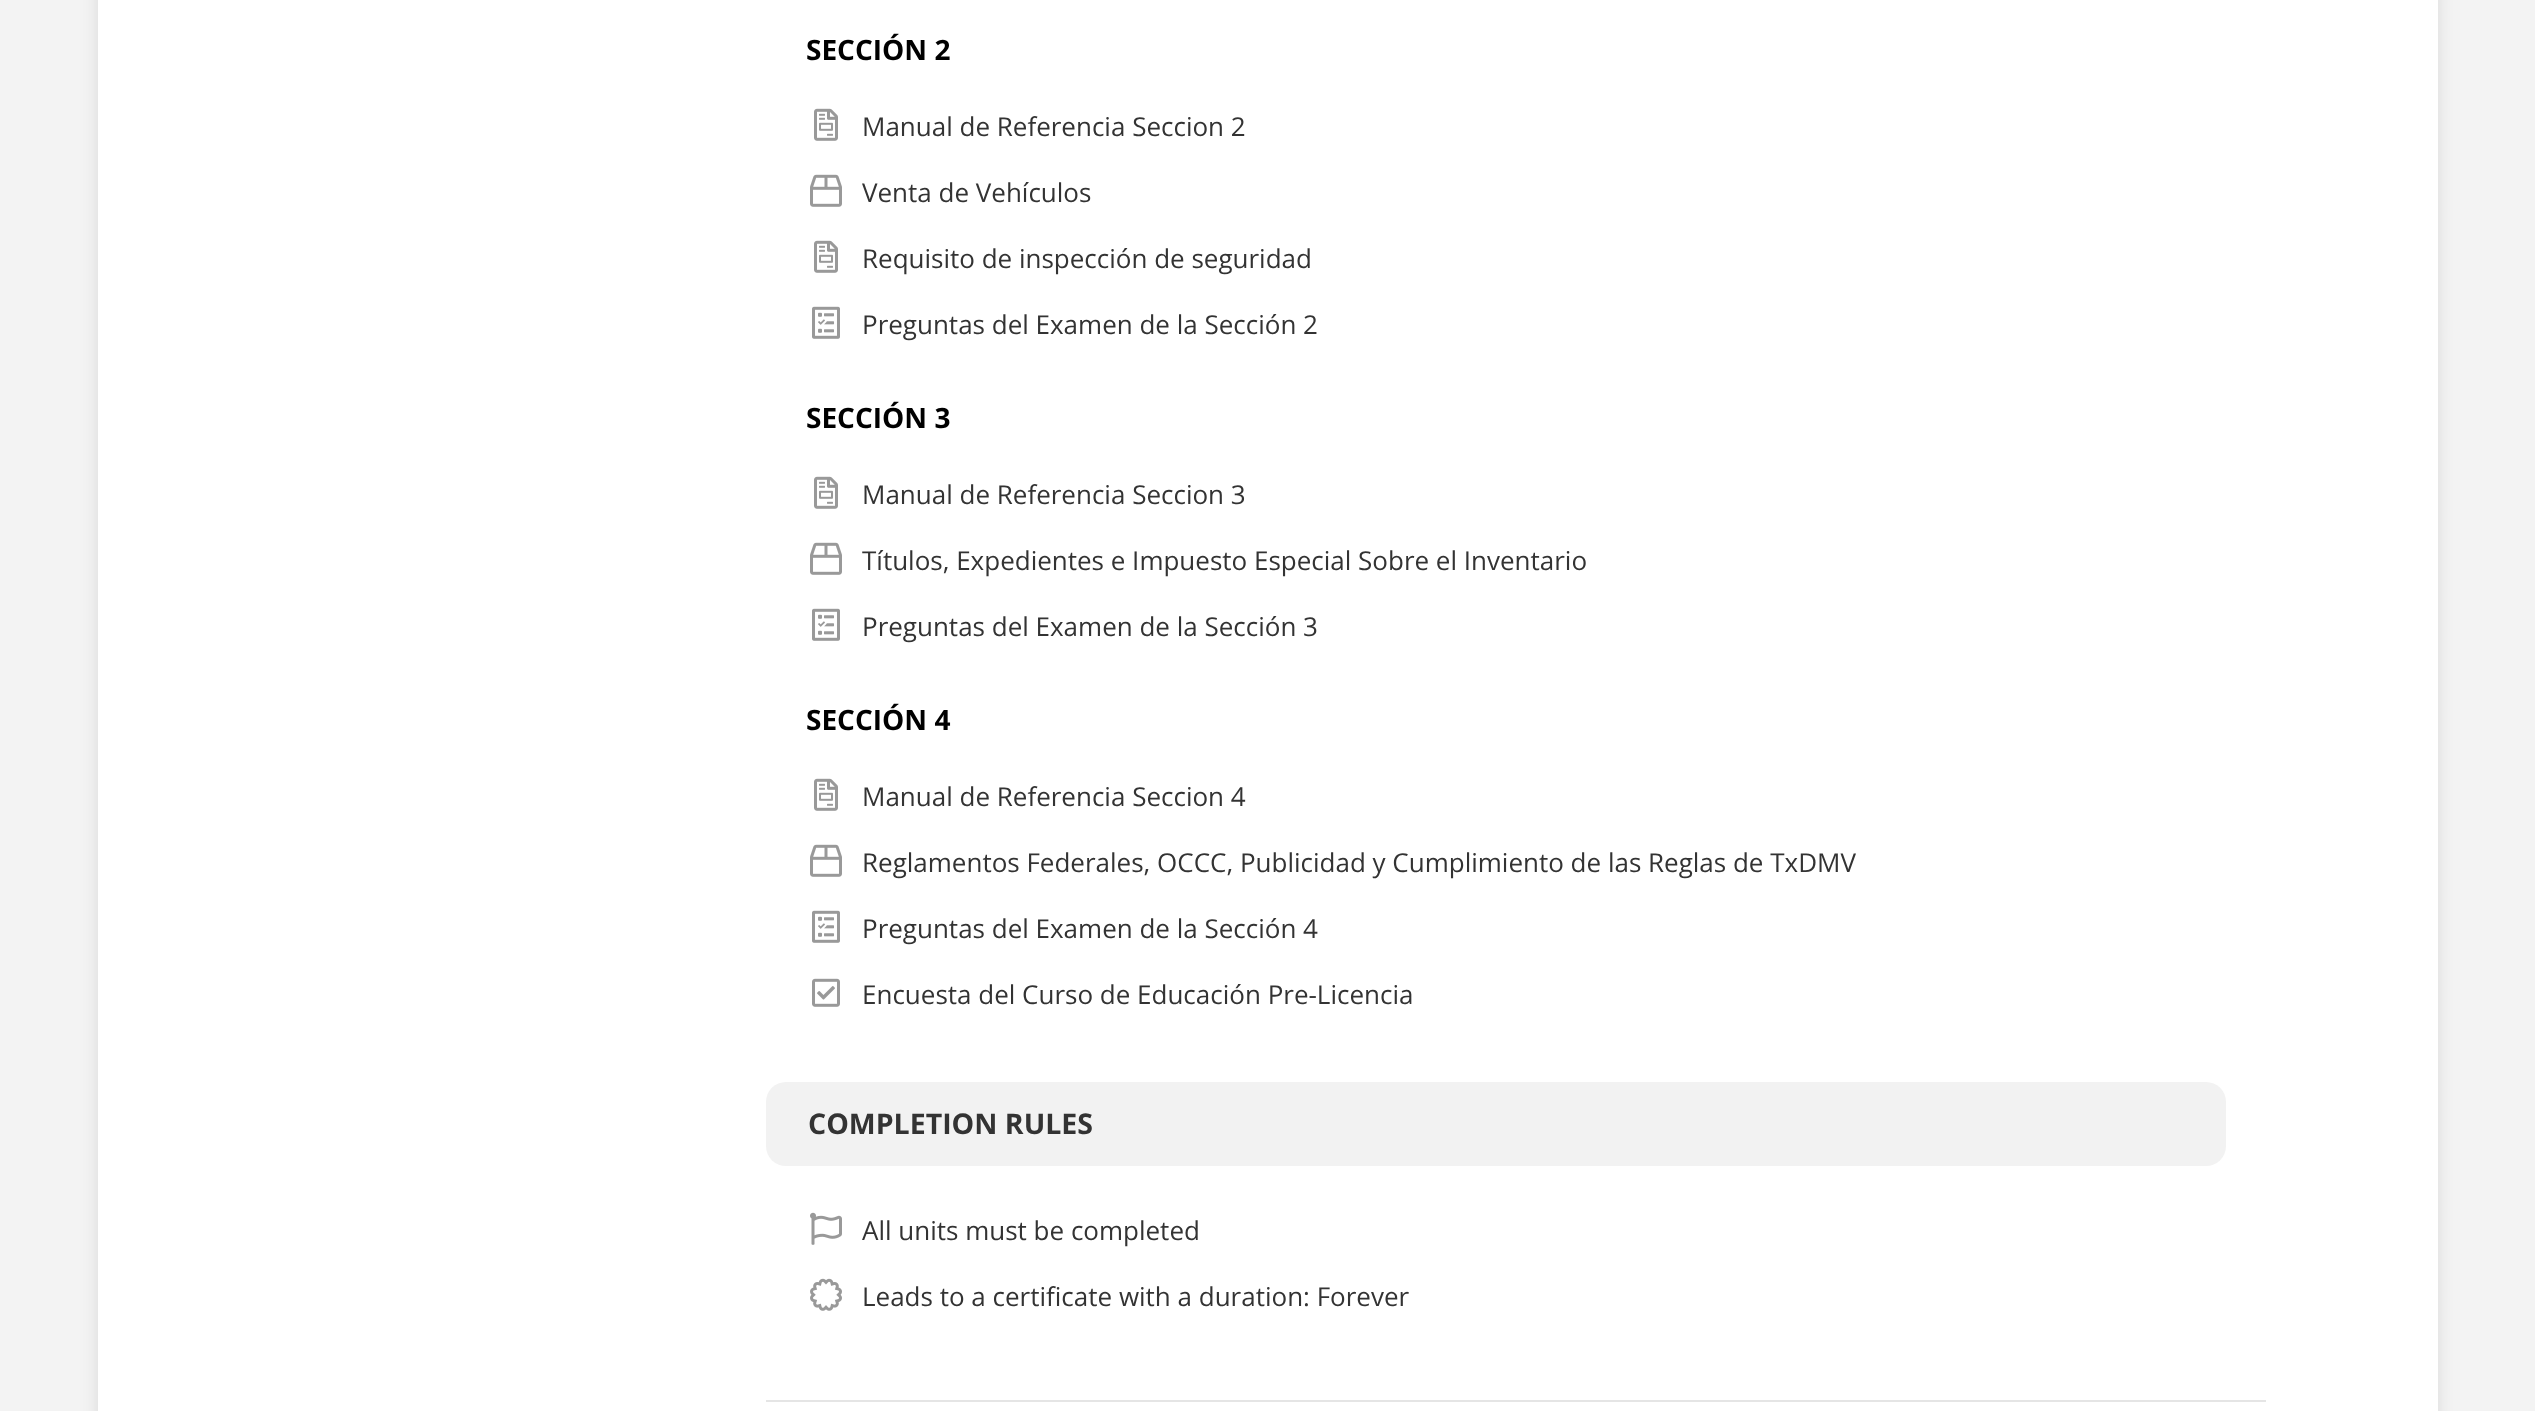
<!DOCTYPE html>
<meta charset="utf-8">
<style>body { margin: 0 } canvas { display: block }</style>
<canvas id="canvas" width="2535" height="1411"></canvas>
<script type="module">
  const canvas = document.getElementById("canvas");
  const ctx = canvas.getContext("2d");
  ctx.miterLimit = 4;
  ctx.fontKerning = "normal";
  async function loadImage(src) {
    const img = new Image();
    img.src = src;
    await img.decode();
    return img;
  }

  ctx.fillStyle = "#f3f3f3";
  ctx.fillRect(0, 0, 2535, 1411);
  ctx.fillStyle = "rgba(0, 0, 0, 0.1)";
  ctx.filter = "blur(8px)";
  ctx.beginPath();
  ctx.roundRect(98, -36, 2340, 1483, 12);
  ctx.fill();
  ctx.filter = "none";
  ctx.fillStyle = "#ffffff";
  ctx.fillRect(98, 0, 2340, 1411);
  ctx.font = "bold 28px Open Sans";
  ctx.fillStyle = "#000000";
  ctx.fillText("SECCIÓN 2", 806, 60);
  ctx.drawImage(await loadImage("img1.png"), 814, 108, 24, 33);
  ctx.font = "26px Open Sans";
  ctx.fillStyle = "#333333";
  ctx.fillText("Manual de Referencia Seccion 2", 862, 136);
  ctx.drawImage(await loadImage("img2.png"), 810, 174, 32, 33);
  ctx.fillText("Venta de Vehículos", 862, 202);
  ctx.drawImage(await loadImage("img1.png"), 814, 240, 24, 33);
  ctx.fillText("Requisito de inspección de seguridad", 862, 268);
  ctx.drawImage(await loadImage("img3.png"), 812, 306, 28, 33);
  ctx.fillText("Preguntas del Examen de la Sección 2", 862, 334);
  ctx.font = "bold 28px Open Sans";
  ctx.fillStyle = "#000000";
  ctx.fillText("SECCIÓN 3", 806, 428);
  ctx.drawImage(await loadImage("img1.png"), 814, 476, 24, 33);
  ctx.font = "26px Open Sans";
  ctx.fillStyle = "#333333";
  ctx.fillText("Manual de Referencia Seccion 3", 862, 504);
  ctx.drawImage(await loadImage("img2.png"), 810, 542, 32, 33);
  ctx.fillText("Títulos, Expedientes e Impuesto Especial Sobre el Inventario", 862, 570);
  ctx.drawImage(await loadImage("img3.png"), 812, 608, 28, 33);
  ctx.fillText("Preguntas del Examen de la Sección 3", 862, 636);
  ctx.font = "bold 28px Open Sans";
  ctx.fillStyle = "#000000";
  ctx.fillText("SECCIÓN 4", 806, 730);
  ctx.drawImage(await loadImage("img1.png"), 814, 778, 24, 33);
  ctx.font = "26px Open Sans";
  ctx.fillStyle = "#333333";
  ctx.fillText("Manual de Referencia Seccion 4", 862, 806);
  ctx.drawImage(await loadImage("img2.png"), 810, 844, 32, 33);
  ctx.fillText("Reglamentos Federales, OCCC, Publicidad y Cumplimiento de las Reglas de TxDMV", 862, 872);
  ctx.drawImage(await loadImage("img3.png"), 812, 910, 28, 33);
  ctx.fillText("Preguntas del Examen de la Sección 4", 862, 938);
  ctx.drawImage(await loadImage("img4.png"), 812, 978, 28, 29);
  ctx.fillText("Encuesta del Curso de Educación Pre-Licencia", 862, 1004);
  ctx.fillStyle = "#f2f2f2";
  ctx.beginPath();
  ctx.roundRect(766, 1082, 1460, 84, 20);
  ctx.fill();
  ctx.font = "bold 28.5px Open Sans";
  ctx.fillStyle = "#333333";
  ctx.fillText("COMPLETION RULES", 808, 1134);
  ctx.drawImage(await loadImage("img5.png"), 810, 1212, 32, 33);
  ctx.font = "26px Open Sans";
  ctx.fillText("All units must be completed", 862, 1240);
  ctx.drawImage(await loadImage("img6.png"), 810, 1278, 32, 33);
  ctx.fillText("Leads to a certificate with a duration: Forever", 862, 1306);
  ctx.fillStyle = "#e5e5e5";
  ctx.fillRect(766, 1400, 1500, 2);
</script>
